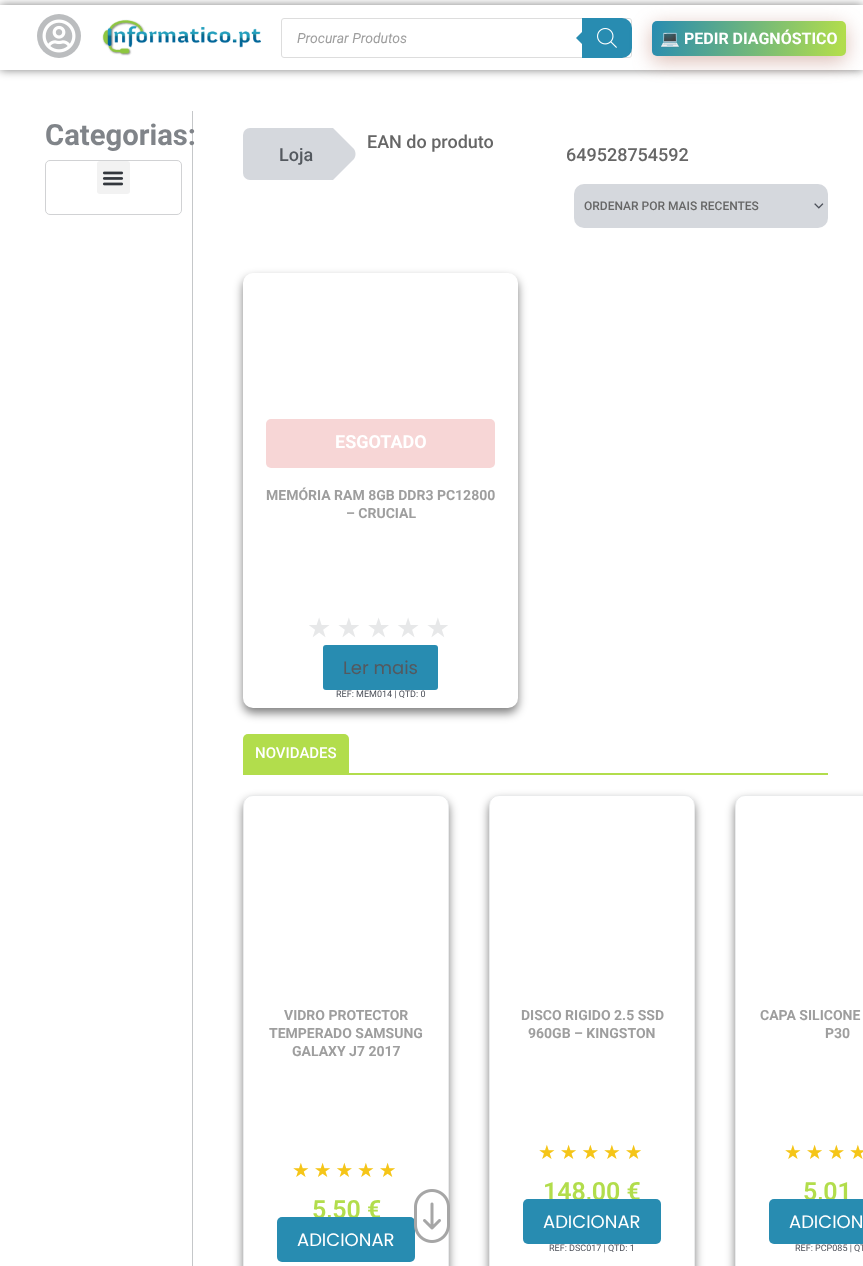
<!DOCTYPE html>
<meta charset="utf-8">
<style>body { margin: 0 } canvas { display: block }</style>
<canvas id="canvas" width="863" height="1266"></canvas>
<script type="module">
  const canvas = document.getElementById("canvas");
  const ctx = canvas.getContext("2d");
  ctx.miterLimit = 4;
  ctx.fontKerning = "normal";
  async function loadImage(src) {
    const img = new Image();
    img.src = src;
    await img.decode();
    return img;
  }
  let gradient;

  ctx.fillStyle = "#ffffff";
  ctx.fillRect(0, 0, 863, 1266);
  ctx.save();
  ctx.beginPath();
  ctx.moveTo(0, 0);
  ctx.lineTo(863, 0);
  ctx.lineTo(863, 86);
  ctx.lineTo(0, 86);
  ctx.closePath();
  ctx.moveTo(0, 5);
  ctx.lineTo(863, 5);
  ctx.lineTo(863, 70);
  ctx.lineTo(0, 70);
  ctx.closePath();
  ctx.clip("evenodd");
  ctx.fillStyle = "rgba(0, 0, 0, 0.5)";
  ctx.filter = "blur(5px)";
  ctx.beginPath();
  ctx.rect(0, 5, 863, 65);
  ctx.fill();
  ctx.filter = "none";
  ctx.restore();
  ctx.fillStyle = "#bbbdbf";
  ctx.beginPath();
  ctx.arc(59, 36, 22, 0, Math.PI * 2);
  ctx.fill();
  ctx.drawImage(await loadImage("img1.png"), 42, 19, 34, 34);
  ctx.drawImage(await loadImage("img2.png"), 102, 19, 159, 37);
  ctx.beginPath();
  ctx.roundRect(281.5, 18.5, 350, 39, 2.5);
  ctx.strokeStyle = "#dddddd";
  ctx.stroke();
  ctx.font = "italic 14px Roboto";
  ctx.fillStyle = "#9e9e9e";
  ctx.fillText("Procurar Produtos", 297, 43);
  ctx.fillStyle = "#288cb1";
  ctx.beginPath();
  ctx.roundRect(582, 18, 50, 40, [0, 10, 10, 0]);
  ctx.fill();
  ctx.beginPath();
  ctx.moveTo(584, 30);
  ctx.lineTo(584, 46);
  ctx.lineTo(576, 38);
  ctx.closePath();
  ctx.fill();
  ctx.drawImage(await loadImage("img3.png"), 597, 28, 20, 20);
  ctx.fillStyle = "rgba(172, 97, 78, 0.43)";
  ctx.filter = "blur(10px)";
  ctx.beginPath();
  ctx.roundRect(652, 26, 194, 35, 5);
  ctx.fill();
  ctx.filter = "none";
  gradient = ctx.createLinearGradient(658, -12, 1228, 89);
  gradient.addColorStop(0, "#288cb1");
  gradient.addColorStop(0.33, "#b2dd4c");
  gradient.addColorStop(0.67, "#288cb1");
  gradient.addColorStop(1, "#b2dd4c");
  ctx.fillStyle = gradient;
  ctx.beginPath();
  ctx.roundRect(652, 21, 194, 35, 5);
  ctx.fill();
  ctx.font = "bold 16px Noto Color Emoji";
  ctx.fillStyle = "#ffffff";
  ctx.fillText("💻", 660, 44);
  ctx.font = "bold 16px Roboto";
  ctx.fillText("PEDIR DIAGNÓSTICO", 684, 44);
  ctx.fillStyle = "#c5c7c9";
  ctx.fillRect(192, 111, 1, 1155);
  ctx.font = "bold 29.25px Roboto";
  ctx.fillStyle = "#808489";
  ctx.fillText("Categorias:", 45, 145);
  ctx.beginPath();
  ctx.roundRect(45.5, 160.5, 136, 54, 4.5);
  ctx.strokeStyle = "#d1d2d4";
  ctx.stroke();
  ctx.fillStyle = "#f2f2f2";
  ctx.beginPath();
  ctx.roundRect(97, 161, 33, 33, 3);
  ctx.fill();
  ctx.drawImage(await loadImage("img4.png"), 102, 171, 22, 15);
  ctx.font = "500 18px Roboto";
  ctx.fillStyle = "#666666";
  ctx.fillText("EAN do produto", 367, 148);
  ctx.fillStyle = "#d5d8dd";
  ctx.beginPath();
  ctx.roundRect(243, 128, 88, 52, [7, 0, 0, 7]);
  ctx.fill();
  ctx.save();
  ctx.beginPath();
  ctx.rect(243, 128, 585, 52);
  ctx.clip();
  ctx.beginPath();
  ctx.moveTo(332, 127);
  ctx.lineTo(354, 149);
  ctx.bezierCurveTo(356, 152, 356, 156, 354, 159);
  ctx.lineTo(332, 181);
  ctx.bezierCurveTo(329, 184, 325, 184, 322, 181);
  ctx.lineTo(300, 159);
  ctx.bezierCurveTo(297, 156, 297, 152, 300, 149);
  ctx.lineTo(322, 127);
  ctx.bezierCurveTo(325, 125, 329, 125, 332, 127);
  ctx.closePath();
  ctx.fill();
  ctx.restore();
  ctx.fillStyle = "#54595f";
  ctx.fillText("Loja", 279, 161);
  ctx.fillStyle = "#666666";
  ctx.fillText("649528754592", 566, 161);
  ctx.fillStyle = "#d5d8dd";
  ctx.beginPath();
  ctx.roundRect(574, 184, 254, 44, 10);
  ctx.fill();
  ctx.drawImage(await loadImage("img5.png"), 814, 203, 10, 6);
  ctx.font = "500 12px Roboto";
  ctx.fillStyle = "#666666";
  ctx.fillText("ORDENAR POR MAIS RECENTES", 584, 210);
  ctx.fillStyle = "rgba(0, 0, 0, 0.5)";
  ctx.filter = "blur(5px)";
  ctx.beginPath();
  ctx.roundRect(243, 278, 275, 435, 10);
  ctx.fill();
  ctx.filter = "none";
  ctx.fillStyle = "#ffffff";
  ctx.beginPath();
  ctx.roundRect(243, 273, 275, 435, 10);
  ctx.fill();
  ctx.fillStyle = "#f7d6d6";
  ctx.beginPath();
  ctx.roundRect(266, 419, 229, 49, 5);
  ctx.fill();
  ctx.font = "bold 18px Roboto";
  ctx.fillStyle = "#ffffff";
  ctx.fillText("ESGOTADO", 335, 448);
  ctx.font = "bold 14px Roboto";
  ctx.fillStyle = "#9e9e9e";
  ctx.fillText("MEMÓRIA RAM 8GB DDR3 PC12800", 266, 500);
  ctx.fillText("– CRUCIAL", 346, 518);
  ctx.letterSpacing = "5.5px";
  ctx.font = "27px DejaVu Sans";
  ctx.fillStyle = "#e7e8e9";
  ctx.fillText("★★★★★", 307, 637);
  ctx.fillStyle = "#288cb1";
  ctx.beginPath();
  ctx.roundRect(323, 645, 115, 45, 3);
  ctx.fill();
  ctx.letterSpacing = "0px";
  ctx.font = "18px Poppins";
  ctx.fillStyle = "#54595f";
  ctx.fillText("Ler mais", 343, 674);
  ctx.font = "9px Roboto";
  ctx.fillStyle = "#4b4f58";
  ctx.fillText("REF: MEM014 | QTD: 0", 336, 697);
  ctx.fillStyle = "#b2dd4c";
  ctx.fillRect(243, 773, 585, 2);
  ctx.beginPath();
  ctx.roundRect(243, 734, 106, 39, [5, 5, 0, 0]);
  ctx.fill();
  ctx.font = "500 15px Roboto";
  ctx.fillStyle = "#ffffff";
  ctx.fillText("NOVIDADES", 255, 758);
  ctx.fillStyle = "rgba(0, 0, 0, 0.5)";
  ctx.filter = "blur(5px)";
  ctx.beginPath();
  ctx.roundRect(243, 800, 206, 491, 10);
  ctx.fill();
  ctx.filter = "none";
  ctx.fillStyle = "#ffffff";
  ctx.beginPath();
  ctx.roundRect(243, 795, 206, 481, 10);
  ctx.fill();
  ctx.beginPath();
  ctx.roundRect(243.5, 795.5, 205, 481, 9.5);
  ctx.strokeStyle = "rgba(84, 89, 95, 0.12)";
  ctx.stroke();
  ctx.font = "bold 14px Roboto";
  ctx.fillStyle = "#9e9e9e";
  ctx.fillText("VIDRO PROTECTOR", 284, 1020);
  ctx.fillText("TEMPERADO SAMSUNG", 269, 1038);
  ctx.fillText("GALAXY J7 2017", 292, 1056);
  ctx.letterSpacing = "4px";
  ctx.font = "19.75px DejaVu Sans";
  ctx.fillStyle = "#f5c518";
  ctx.fillText("★★★★★", 292, 1177);
  ctx.letterSpacing = "0px";
  ctx.font = "600 25px Roboto";
  ctx.fillStyle = "#b2dd4c";
  ctx.fillText("5,50 €", 312, 1218);
  ctx.fillStyle = "#288cb1";
  ctx.beginPath();
  ctx.roundRect(277, 1217, 138, 45, 5);
  ctx.fill();
  ctx.font = "18px Poppins";
  ctx.fillStyle = "#ffffff";
  ctx.fillText("ADICIONAR", 297, 1246);
  ctx.fillStyle = "rgba(0, 0, 0, 0.5)";
  ctx.filter = "blur(5px)";
  ctx.beginPath();
  ctx.roundRect(489, 800, 206, 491, 10);
  ctx.fill();
  ctx.filter = "none";
  ctx.fillStyle = "#ffffff";
  ctx.beginPath();
  ctx.roundRect(489, 795, 206, 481, 10);
  ctx.fill();
  ctx.beginPath();
  ctx.roundRect(489.5, 795.5, 205, 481, 9.5);
  ctx.stroke();
  ctx.font = "bold 14px Roboto";
  ctx.fillStyle = "#9e9e9e";
  ctx.fillText("DISCO RIGIDO 2.5 SSD", 521, 1020);
  ctx.fillText("960GB – KINGSTON", 528, 1038);
  ctx.letterSpacing = "4px";
  ctx.font = "19.75px DejaVu Sans";
  ctx.fillStyle = "#f5c518";
  ctx.fillText("★★★★★", 538, 1159);
  ctx.letterSpacing = "0px";
  ctx.font = "600 25px Roboto";
  ctx.fillStyle = "#b2dd4c";
  ctx.fillText("148,00 €", 543, 1200);
  ctx.fillStyle = "#288cb1";
  ctx.beginPath();
  ctx.roundRect(523, 1199, 138, 45, 5);
  ctx.fill();
  ctx.font = "18px Poppins";
  ctx.fillStyle = "#ffffff";
  ctx.fillText("ADICIONAR", 543, 1228);
  ctx.font = "9px Roboto";
  ctx.fillStyle = "#4b4f58";
  ctx.fillText("REF: DSC017 | QTD: 1", 549, 1251);
  ctx.fillStyle = "rgba(0, 0, 0, 0.5)";
  ctx.filter = "blur(5px)";
  ctx.beginPath();
  ctx.roundRect(735, 800, 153, 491, 10);
  ctx.fill();
  ctx.filter = "none";
  ctx.fillStyle = "#ffffff";
  ctx.beginPath();
  ctx.roundRect(735, 795, 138, 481, 10);
  ctx.fill();
  ctx.beginPath();
  ctx.roundRect(735.5, 795.5, 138, 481, 9.5);
  ctx.stroke();
  ctx.font = "bold 14px Roboto";
  ctx.fillStyle = "#9e9e9e";
  ctx.fillText("CAPA SILICONE", 760, 1020);
  ctx.fillText("P30", 825, 1038);
  ctx.letterSpacing = "4px";
  ctx.font = "19.75px DejaVu Sans";
  ctx.fillStyle = "#f5c518";
  ctx.fillText("★★★★", 784, 1159);
  ctx.letterSpacing = "0px";
  ctx.font = "600 25px Roboto";
  ctx.fillStyle = "#b2dd4c";
  ctx.fillText("5,01", 803, 1200);
  ctx.fillStyle = "#288cb1";
  ctx.beginPath();
  ctx.roundRect(769, 1199, 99, 45, 5);
  ctx.fill();
  ctx.font = "18px Poppins";
  ctx.fillStyle = "#ffffff";
  ctx.fillText("ADICION", 789, 1228);
  ctx.font = "9px Roboto";
  ctx.fillStyle = "#4b4f58";
  ctx.fillText("REF: PCP085 | QT", 795, 1251);
  ctx.drawImage(await loadImage("img6.png"), 414, 1189, 36, 54);
</script>
